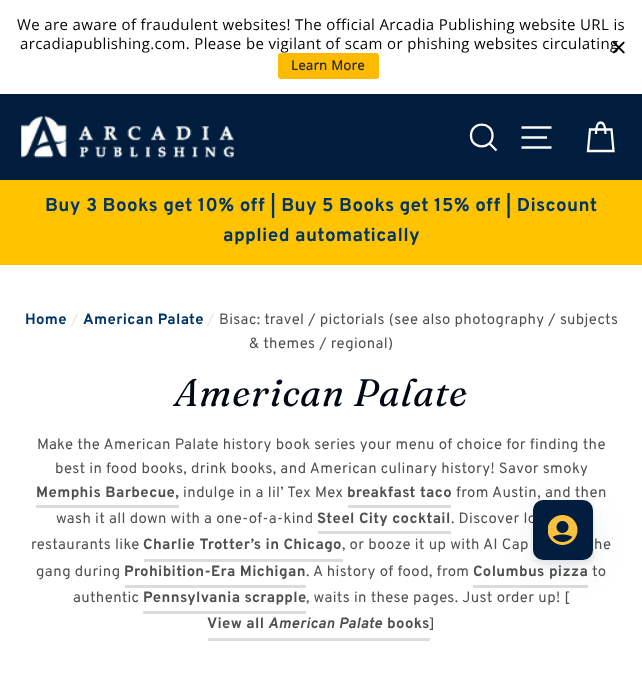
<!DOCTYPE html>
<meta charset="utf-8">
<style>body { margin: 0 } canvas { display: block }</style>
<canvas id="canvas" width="642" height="685"></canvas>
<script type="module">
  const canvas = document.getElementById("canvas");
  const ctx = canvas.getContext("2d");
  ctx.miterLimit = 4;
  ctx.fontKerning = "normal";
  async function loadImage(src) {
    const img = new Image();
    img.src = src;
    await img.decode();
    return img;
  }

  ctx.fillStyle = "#ffffff";
  ctx.fillRect(0, 0, 642, 685);
  ctx.letterSpacing = "0.37px";
  ctx.font = "15px Open Sans";
  ctx.fillStyle = "#000000";
  ctx.fillText("We are aware of fraudulent websites! The official Arcadia Publishing website URL is", 17, 30);
  ctx.fillText("arcadiapublishing.com. Please be vigilant of scam or phishing websites circulating", 20, 49);
  ctx.fillStyle = "#ffbb00";
  ctx.beginPath();
  ctx.roundRect(278, 53, 101, 26, 3);
  ctx.fill();
  ctx.font = "bold 13px Open Sans";
  ctx.fillStyle = "#2a2c2b";
  ctx.fillText("Learn More", 291, 70);
  ctx.drawImage(await loadImage("img1.png"), 612, 41, 13, 13);
  ctx.fillStyle = "#001d3d";
  ctx.fillRect(0, 94, 642, 86);
  ctx.drawImage(await loadImage("img2.png"), 21, 116, 213, 42);
  ctx.beginPath();
  ctx.moveTo(492.5, 135.5);
  ctx.bezierCurveTo(492.5, 150, 471, 150, 471, 135.5);
  ctx.bezierCurveTo(471, 121, 492.5, 121, 492.5, 135.5);
  ctx.closePath();
  ctx.moveTo(496.5, 150.5);
  ctx.lineTo(489.5, 143.5);
  ctx.strokeStyle = "#fafafa";
  ctx.lineWidth = 2.3;
  ctx.stroke();
  ctx.beginPath();
  ctx.moveTo(521.5, 127.5);
  ctx.lineTo(551.5, 127.5);
  ctx.moveTo(521.5, 137.5);
  ctx.lineTo(547, 137.5);
  ctx.moveTo(521.5, 147.5);
  ctx.lineTo(551.5, 147.5);
  ctx.stroke();
  ctx.beginPath();
  ctx.moveTo(596, 134);
  ctx.bezierCurveTo(596, 124.5, 598, 122.5, 600.5, 122.5);
  ctx.bezierCurveTo(603, 122.5, 605.5, 124.5, 605.5, 134);
  ctx.moveTo(590, 129.5);
  ctx.lineTo(611.5, 129.5);
  ctx.lineTo(613.5, 151);
  ctx.lineTo(588, 151);
  ctx.closePath();
  ctx.stroke();
  ctx.fillStyle = "#ffc300";
  ctx.fillRect(0, 180, 642, 85);
  ctx.save();
  ctx.beginPath();
  ctx.rect(21, 193, 600, 60);
  ctx.clip();
  ctx.font = "bold 18.75px Overpass";
  ctx.fillStyle = "#003566";
  ctx.fillText("Buy 3 Books get 10% off | Buy 5 Books get 15% off | Discount", 45, 211);
  ctx.restore();
  ctx.font = "bold 18.75px Overpass";
  ctx.fillStyle = "#003566";
  ctx.fillText("applied automatically", 223, 241);
  ctx.font = "bold 14.9px Overpass";
  ctx.fillText("Home", 25, 324);
  ctx.font = "14.9px Overpass";
  ctx.fillStyle = "#e8e8e1";
  ctx.fillText("/", 71, 324);
  ctx.font = "bold 14.9px Overpass";
  ctx.fillStyle = "#003566";
  ctx.fillText("American Palate", 83, 324);
  ctx.font = "14.9px Overpass";
  ctx.fillStyle = "#e8e8e1";
  ctx.fillText("/", 207, 324);
  ctx.fillStyle = "#505050";
  ctx.fillText("Bisac: travel / pictorials (see also photography / subjects", 219, 324);
  ctx.fillText("& themes / regional)", 249, 348);
  ctx.letterSpacing = "1px";
  ctx.font = "italic 38.25px Fraunces";
  ctx.fillStyle = "#000814";
  ctx.fillText("American Palate", 174, 406);
  ctx.letterSpacing = "0.37px";
  ctx.font = "14.9px Overpass";
  ctx.fillStyle = "#505050";
  ctx.fillText("Make the American Palate history book series your menu of choice for finding the", 37, 449);
  ctx.fillText("best in food books, drink books, and American culinary history! Savor smoky", 55, 473);
  ctx.fillStyle = "#dcdcdc";
  ctx.fillRect(36, 505, 143, 3);
  ctx.font = "bold 14.9px Overpass";
  ctx.fillStyle = "#505050";
  ctx.fillText("Memphis Barbecue,", 36, 497);
  ctx.font = "14.9px Overpass";
  ctx.fillText("indulge in a lil’ Tex Mex", 183, 497);
  ctx.fillStyle = "#dcdcdc";
  ctx.fillRect(348, 505, 103, 3);
  ctx.font = "bold 14.9px Overpass";
  ctx.fillStyle = "#505050";
  ctx.fillText("breakfast taco", 347, 497);
  ctx.font = "14.9px Overpass";
  ctx.fillText("from Austin, and then", 456, 497);
  ctx.fillText("wash it all down with a one-of-a-kind", 56, 523);
  ctx.fillStyle = "#dcdcdc";
  ctx.fillRect(318, 531, 133, 3);
  ctx.font = "bold 14.9px Overpass";
  ctx.fillStyle = "#505050";
  ctx.fillText("Steel City cocktail", 317, 523);
  ctx.font = "14.9px Overpass";
  ctx.fillText(". Discover lo", 451, 523);
  ctx.fillText("restaurants like", 31, 549);
  ctx.fillStyle = "#dcdcdc";
  ctx.fillRect(144, 559, 199, 3);
  ctx.font = "bold 14.9px Overpass";
  ctx.fillStyle = "#505050";
  ctx.fillText("Charlie Trotter’s in Chicago", 143, 549);
  ctx.font = "14.9px Overpass";
  ctx.fillText(", or booze it up with Al Cap", 342, 549);
  ctx.fillText("he", 594, 549);
  ctx.fillText("gang during", 36, 576);
  ctx.fillStyle = "#dcdcdc";
  ctx.fillRect(125, 585, 181, 3);
  ctx.font = "bold 14.9px Overpass";
  ctx.fillStyle = "#505050";
  ctx.fillText("Prohibition-Era Michigan", 124, 576);
  ctx.font = "14.9px Overpass";
  ctx.fillText(". A history of food, from", 306, 576);
  ctx.fillStyle = "#dcdcdc";
  ctx.fillRect(473, 585, 115, 3);
  ctx.font = "bold 14.9px Overpass";
  ctx.fillStyle = "#505050";
  ctx.fillText("Columbus pizza", 473, 576);
  ctx.font = "14.9px Overpass";
  ctx.fillText("to", 592, 576);
  ctx.fillText("authentic", 73, 602);
  ctx.fillStyle = "#dcdcdc";
  ctx.fillRect(143, 611, 163, 3);
  ctx.font = "bold 14.9px Overpass";
  ctx.fillStyle = "#505050";
  ctx.fillText("Pennsylvania scrapple", 143, 602);
  ctx.font = "14.9px Overpass";
  ctx.fillText(", waits in these pages. Just order up! [", 306, 602);
  ctx.fillStyle = "#dcdcdc";
  ctx.fillRect(208, 638, 222, 3);
  ctx.font = "bold 14.9px Overpass";
  ctx.fillStyle = "#505050";
  ctx.fillText("View all", 207, 628);
  ctx.font = "italic bold 14.9px Overpass";
  ctx.fillText("American Palate", 268, 628);
  ctx.font = "bold 14.9px Overpass";
  ctx.fillText("books", 387, 628);
  ctx.font = "14.9px Overpass";
  ctx.fillText("]", 429, 628);
  ctx.fillStyle = "rgba(55, 63, 71, 0.08)";
  ctx.filter = "blur(15px)";
  ctx.beginPath();
  ctx.roundRect(533, 510, 60, 60, 10);
  ctx.fill();
  ctx.filter = "none";
  ctx.filter = "blur(2.5px)";
  ctx.beginPath();
  ctx.roundRect(533, 505, 60, 60, 10);
  ctx.fill();
  ctx.filter = "none";
  ctx.strokeStyle = "rgba(55, 63, 71, 0.04)";
  ctx.lineWidth = 1;
  ctx.strokeRect(531.5, 499.5, 62, 61);
  ctx.fillStyle = "#001d3e";
  ctx.beginPath();
  ctx.roundRect(533, 500, 60, 60, 10);
  ctx.fill();
  ctx.drawImage(await loadImage("img3.png"), 548, 515, 30, 30);
</script>
